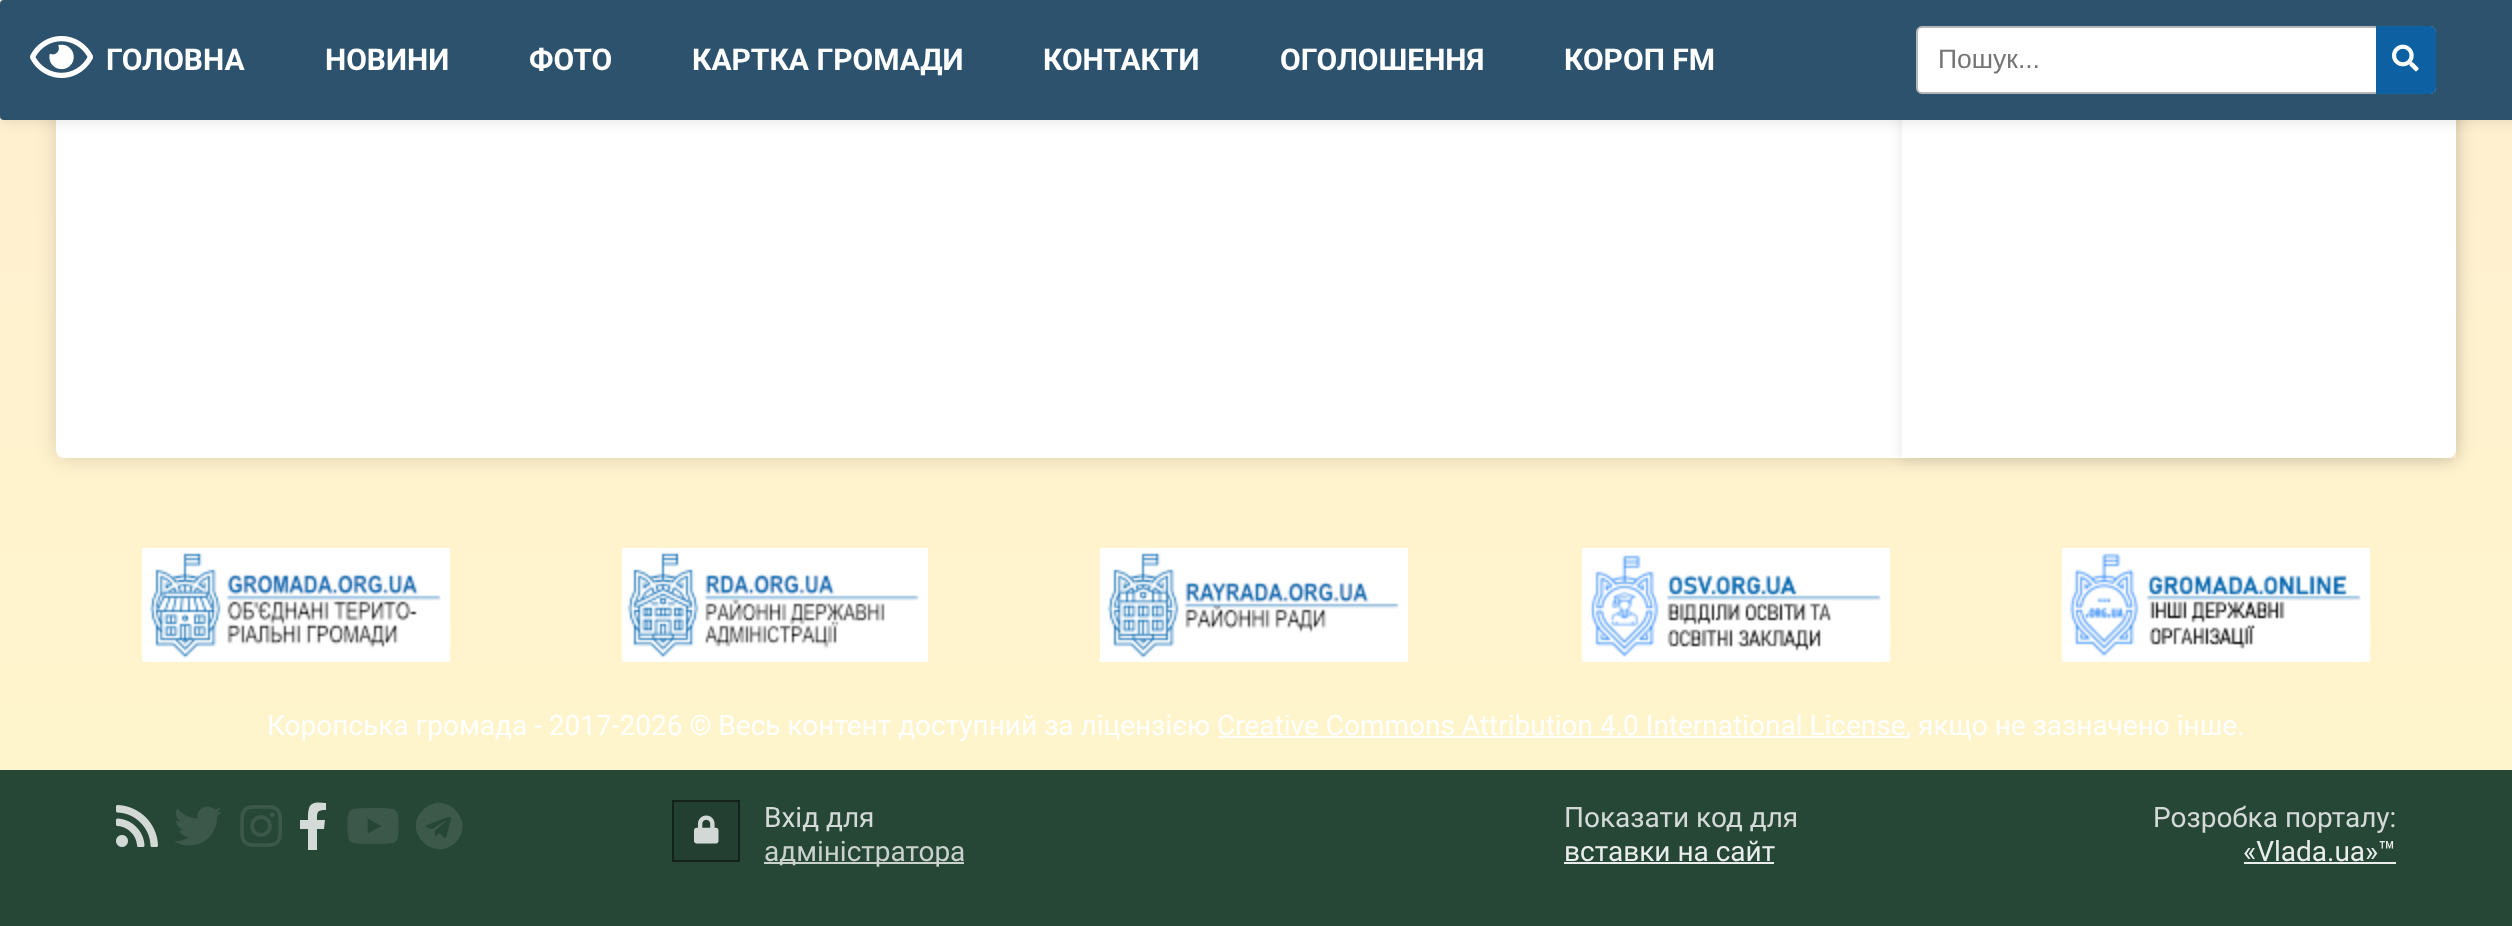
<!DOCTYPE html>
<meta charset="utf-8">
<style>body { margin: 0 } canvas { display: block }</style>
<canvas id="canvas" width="2512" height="926"></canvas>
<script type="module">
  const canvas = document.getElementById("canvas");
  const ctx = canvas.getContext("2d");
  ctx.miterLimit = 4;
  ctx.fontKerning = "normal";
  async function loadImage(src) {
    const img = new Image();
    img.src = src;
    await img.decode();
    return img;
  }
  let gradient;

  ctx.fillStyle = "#ffffff";
  ctx.fillRect(0, 0, 2512, 926);
  gradient = ctx.createLinearGradient(1256, -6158, 1256, 926);
  gradient.addColorStop(0.11, "#ffffff");
  gradient.addColorStop(0.23, "#fff1d0");
  ctx.fillStyle = gradient;
  ctx.fillRect(0, 0, 4, 4);
  gradient = ctx.createLinearGradient(1256, 48, 1256, 914);
  gradient.addColorStop(0.17, "#fff1d0");
  gradient.addColorStop(1, "#fff6cb");
  ctx.fillStyle = gradient;
  ctx.fillRect(0, 116, 2512, 654);
  ctx.fillStyle = "rgba(0, 0, 0, 0.15)";
  ctx.filter = "blur(10px)";
  ctx.beginPath();
  ctx.roundRect(56, -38, 2400, 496, 8);
  ctx.fill();
  ctx.filter = "none";
  ctx.fillStyle = "#ffffff";
  ctx.beginPath();
  ctx.roundRect(56, -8, 2400, 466, 8);
  ctx.fill();
  ctx.fillStyle = "rgba(0, 0, 0, 0.1)";
  ctx.filter = "blur(7px)";
  ctx.beginPath();
  ctx.roundRect(0, 2, 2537, 120, 4);
  ctx.fill();
  ctx.filter = "none";
  ctx.save();
  ctx.beginPath();
  ctx.moveTo(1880, 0);
  ctx.lineTo(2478, 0);
  ctx.lineTo(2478, 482);
  ctx.lineTo(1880, 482);
  ctx.closePath();
  ctx.moveTo(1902, -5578);
  ctx.lineTo(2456, -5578);
  ctx.lineTo(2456, 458);
  ctx.lineTo(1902, 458);
  ctx.closePath();
  ctx.clip("evenodd");
  ctx.filter = "blur(7px)";
  ctx.beginPath();
  ctx.rect(1902, -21, 554, 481);
  ctx.fill();
  ctx.filter = "none";
  ctx.restore();
  ctx.fillStyle = "#2c526e";
  ctx.beginPath();
  ctx.roundRect(0, 0, 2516, 120, 4);
  ctx.fill();
  ctx.font = "bold 30px Roboto";
  ctx.fillStyle = "#ffffff";
  ctx.fillText("ГОЛОВНА", 106, 70);
  ctx.fillText("НОВИНИ", 325, 70);
  ctx.fillText("ФОТО", 529, 70);
  ctx.fillText("КАРТКА ГРОМАДИ", 692, 70);
  ctx.fillText("КОНТАКТИ", 1043, 70);
  ctx.fillText("ОГОЛОШЕННЯ", 1280, 70);
  ctx.fillText("КОРОП FM", 1564, 70);
  ctx.drawImage(await loadImage("img1.png"), 30, 36, 63, 42);
  ctx.beginPath();
  ctx.roundRect(1917, 27, 518, 66, 5);
  ctx.fill();
  ctx.strokeStyle = "#b7b7b7";
  ctx.lineWidth = 2;
  ctx.stroke();
  ctx.font = "26.5px Liberation Sans";
  ctx.fillStyle = "#757575";
  ctx.fillText("Пошук...", 1938, 68);
  ctx.fillStyle = "#0d61a2";
  ctx.beginPath();
  ctx.roundRect(2376, 26, 60, 68, [0, 6, 6, 0]);
  ctx.fill();
  ctx.drawImage(await loadImage("img2.png"), 2392, 44, 27, 28);
  ctx.drawImage(await loadImage("img3.png"), 142, 548, 308, 114);
  ctx.drawImage(await loadImage("img4.png"), 622, 548, 306, 114);
  ctx.drawImage(await loadImage("img5.png"), 1100, 548, 308, 114);
  ctx.drawImage(await loadImage("img6.png"), 1582, 548, 308, 114);
  ctx.drawImage(await loadImage("img7.png"), 2062, 548, 308, 114);
  ctx.font = "28px Roboto";
  ctx.fillStyle = "#ffffff";
  ctx.fillText("Коропська громада - 2017-2026 © Весь контент доступний за ліцензією Creative Commons Attribution 4.0 International License, якщо не зазначено інше.", 267, 735);
  ctx.fillRect(1218, 736, 688, 2);
  ctx.fillStyle = "#264636";
  ctx.fillRect(0, 770, 2512, 156);
  ctx.drawImage(await loadImage("img8.png"), 116, 805, 42, 42);
  ctx.drawImage(await loadImage("img9.png"), 174, 806, 48, 40);
  ctx.drawImage(await loadImage("img10.png"), 240, 805, 42, 42);
  ctx.fillStyle = "#d4dad7";
  ctx.beginPath();
  ctx.moveTo(324, 829);
  ctx.lineTo(317, 829);
  ctx.lineTo(317, 850);
  ctx.lineTo(308, 850);
  ctx.lineTo(308, 829);
  ctx.lineTo(300, 829);
  ctx.lineTo(300, 820);
  ctx.lineTo(308, 820);
  ctx.bezierCurveTo(308, 804, 310, 801, 326, 803);
  ctx.lineTo(326, 810);
  ctx.bezierCurveTo(317, 810, 317, 812, 317, 820);
  ctx.lineTo(325, 820);
  ctx.closePath();
  ctx.fill();
  ctx.drawImage(await loadImage("img11.png"), 347, 808, 52, 36);
  ctx.fillStyle = "#3c594a";
  ctx.beginPath();
  ctx.moveTo(423, 810);
  ctx.bezierCurveTo(444, 788, 477, 821, 456, 842);
  ctx.bezierCurveTo(434, 864, 401, 831, 423, 810);
  ctx.closePath();
  ctx.moveTo(451, 819);
  ctx.bezierCurveTo(451, 815, 447, 818, 445, 818);
  ctx.lineTo(430, 824);
  ctx.bezierCurveTo(427, 825, 425, 826, 425, 827);
  ctx.lineTo(432, 829);
  ctx.lineTo(445, 821);
  ctx.lineTo(446, 821);
  ctx.lineTo(435, 831);
  ctx.lineTo(435, 837);
  ctx.lineTo(439, 833);
  ctx.bezierCurveTo(444, 837, 446, 841, 447, 834);
  ctx.closePath();
  ctx.fill();
  ctx.fillStyle = "#223f31";
  ctx.beginPath();
  ctx.rect(673, 801, 66, 60);
  ctx.fill();
  ctx.strokeStyle = "#13231b";
  ctx.stroke();
  ctx.drawImage(await loadImage("img12.png"), 694, 815, 25, 29);
  ctx.fillStyle = "#d4dad7";
  ctx.fillText("Вхід для", 764, 827);
  ctx.fillStyle = "#c9d1cd";
  ctx.fillRect(764, 862, 200, 2);
  ctx.fillText("адміністратора", 764, 861);
  ctx.fillStyle = "#d4dad7";
  ctx.fillText("Показати код для", 1564, 827);
  ctx.fillStyle = "#e9edeb";
  ctx.fillText("вставки на сайт", 1564, 861);
  ctx.fillRect(1564, 862, 210, 2);
  ctx.fillStyle = "#d4dad7";
  ctx.fillText("Розробка порталу:", 2153, 827);
  ctx.fillStyle = "#e9edeb";
  ctx.fillText("«Vlada.ua»™", 2243, 861);
  ctx.fillRect(2244, 862, 152, 2);
</script>
